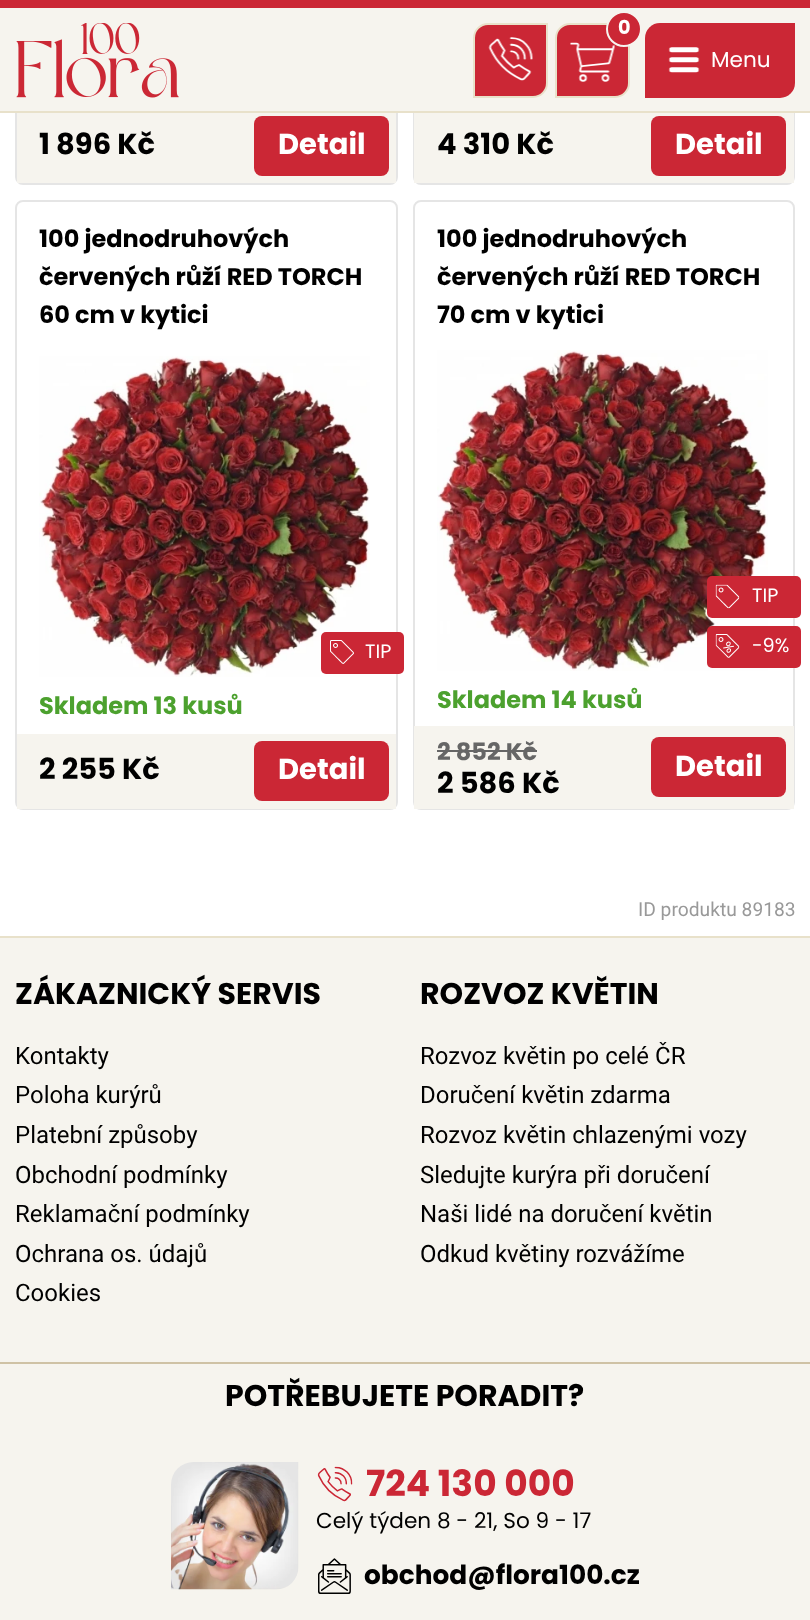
<!DOCTYPE html>
<meta charset="utf-8">
<style>body { margin: 0 } canvas { display: block }</style>
<canvas id="canvas" width="810" height="1620"></canvas>
<script type="module">
  const canvas = document.getElementById("canvas");
  const ctx = canvas.getContext("2d");
  ctx.miterLimit = 4;
  ctx.fontKerning = "normal";
  async function loadImage(src) {
    const img = new Image();
    img.src = src;
    await img.decode();
    return img;
  }

  ctx.fillStyle = "#ffffff";
  ctx.fillRect(0, 0, 810, 1620);
  ctx.beginPath();
  ctx.roundRect(16, -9, 381, 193, 7);
  ctx.strokeStyle = "#e5e5e5";
  ctx.lineWidth = 2;
  ctx.stroke();
  ctx.beginPath();
  ctx.roundRect(414, -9, 380, 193, 7);
  ctx.stroke();
  ctx.fillStyle = "#f6f4ee";
  ctx.fillRect(0, 8, 810, 103);
  ctx.fillStyle = "#cb2735";
  ctx.fillRect(0, 0, 810, 8);
  ctx.fillStyle = "#e8e1ca";
  ctx.fillRect(0, 111, 810, 2);
  ctx.drawImage(await loadImage("img1.png"), 16, 23, 163, 75);
  ctx.fillStyle = "#cb2735";
  ctx.beginPath();
  ctx.roundRect(474, 24, 73, 73, [14, 0, 14, 0]);
  ctx.fill();
  ctx.strokeStyle = "#e8e1ca";
  ctx.stroke();
  ctx.drawImage(await loadImage("img2.png"), 488, 37, 45, 44);
  ctx.beginPath();
  ctx.roundRect(556, 24, 73, 73, [14, 0, 14, 0]);
  ctx.fill();
  ctx.stroke();
  ctx.drawImage(await loadImage("img3.png"), 570, 42, 45, 40);
  ctx.beginPath();
  ctx.arc(624, 29, 17, 0, Math.PI * 2);
  ctx.fill();
  ctx.strokeStyle = "#f6f4ee";
  ctx.stroke();
  ctx.font = "bold 19.25px Poppins";
  ctx.fillStyle = "#ffffff";
  ctx.fillText("0", 618, 34);
  ctx.fillStyle = "#cb2735";
  ctx.beginPath();
  ctx.roundRect(645, 23, 150, 75, [15, 0, 15, 0]);
  ctx.fill();
  ctx.drawImage(await loadImage("img4.png"), 668, 47, 32, 26);
  ctx.font = "21.6px Poppins";
  ctx.fillStyle = "#ffffff";
  ctx.fillText("Menu", 711, 67);
  ctx.fillStyle = "#f6f4ee";
  ctx.fillRect(17, 113, 379, 70);
  ctx.font = "bold 29px Poppins";
  ctx.fillStyle = "#000000";
  ctx.fillText("1 896 Kč", 39, 154);
  ctx.fillStyle = "#cb2735";
  ctx.beginPath();
  ctx.roundRect(254, 116, 135, 60, 8);
  ctx.fill();
  ctx.fillStyle = "#ffffff";
  ctx.fillText("Detail", 278, 154);
  ctx.fillStyle = "#f6f4ee";
  ctx.fillRect(414, 113, 380, 70);
  ctx.fillStyle = "#000000";
  ctx.fillText("4 310 Kč", 437, 154);
  ctx.fillStyle = "#cb2735";
  ctx.beginPath();
  ctx.roundRect(651, 116, 135, 60, 8);
  ctx.fill();
  ctx.fillStyle = "#ffffff";
  ctx.fillText("Detail", 675, 154);
  ctx.beginPath();
  ctx.roundRect(16, 201, 381, 608, 7);
  ctx.strokeStyle = "#e5e5e5";
  ctx.stroke();
  ctx.font = "bold 24px Poppins";
  ctx.fillStyle = "#000000";
  ctx.fillText("100 jednodruhových", 39, 247);
  ctx.fillText("červených růží RED TORCH", 39, 285);
  ctx.fillText("60 cm v kytici", 39, 323);
  ctx.drawImage(await loadImage("img5.png"), 39, 356, 331, 321);
  ctx.fillStyle = "#cb2735";
  ctx.beginPath();
  ctx.roundRect(321, 632, 83, 42, 5);
  ctx.fill();
  ctx.drawImage(await loadImage("img6.png"), 330, 640, 24, 24);
  ctx.font = "19.25px Poppins";
  ctx.fillStyle = "#ffffff";
  ctx.fillText("TIP", 365, 658);
  ctx.font = "bold 24px Poppins";
  ctx.fillStyle = "#4ca12e";
  ctx.fillText("Skladem 13 kusů", 39, 714);
  ctx.fillStyle = "#f6f4ee";
  ctx.fillRect(17, 734, 379, 75);
  ctx.font = "bold 29px Poppins";
  ctx.fillStyle = "#000000";
  ctx.fillText("2 255 Kč", 39, 779);
  ctx.fillStyle = "#cb2735";
  ctx.beginPath();
  ctx.roundRect(254, 741, 135, 60, 8);
  ctx.fill();
  ctx.fillStyle = "#ffffff";
  ctx.fillText("Detail", 278, 779);
  ctx.beginPath();
  ctx.roundRect(414, 201, 380, 608, 7);
  ctx.stroke();
  ctx.font = "bold 24px Poppins";
  ctx.fillStyle = "#000000";
  ctx.fillText("100 jednodruhových", 437, 247);
  ctx.fillText("červených růží RED TORCH", 437, 285);
  ctx.fillText("70 cm v kytici", 437, 323);
  ctx.drawImage(await loadImage("img7.png"), 437, 350, 331, 321);
  ctx.fillStyle = "#cb2735";
  ctx.beginPath();
  ctx.roundRect(707, 576, 94, 42, 5);
  ctx.fill();
  ctx.drawImage(await loadImage("img8.png"), 715, 584, 25, 25);
  ctx.font = "19.25px Poppins";
  ctx.fillStyle = "#ffffff";
  ctx.fillText("TIP", 752, 602);
  ctx.fillStyle = "#cb2735";
  ctx.beginPath();
  ctx.roundRect(707, 626, 94, 42, 5);
  ctx.fill();
  ctx.drawImage(await loadImage("img9.png"), 715, 634, 25, 24);
  ctx.fillStyle = "#ffffff";
  ctx.fillText("-9%", 752, 652);
  ctx.font = "bold 24px Poppins";
  ctx.fillStyle = "#4ca12e";
  ctx.fillText("Skladem 14 kusů", 437, 708);
  ctx.fillStyle = "#f6f4ee";
  ctx.fillRect(414, 726, 380, 83);
  ctx.fillStyle = "#666666";
  ctx.fillText("2 852 Kč", 437, 760);
  ctx.fillRect(437, 750, 100, 2);
  ctx.font = "bold 29px Poppins";
  ctx.fillStyle = "#000000";
  ctx.fillText("2 586 Kč", 437, 793);
  ctx.fillStyle = "#cb2735";
  ctx.beginPath();
  ctx.roundRect(651, 737, 135, 60, 8);
  ctx.fill();
  ctx.fillStyle = "#ffffff";
  ctx.fillText("Detail", 675, 776);
  ctx.font = "19.25px Roboto";
  ctx.fillStyle = "#999999";
  ctx.fillText("ID produktu 89183", 638, 916);
  ctx.fillStyle = "#f6f4ee";
  ctx.fillRect(0, 938, 810, 682);
  ctx.fillStyle = "#e8e1ca";
  ctx.fillRect(0, 936, 810, 2);
  ctx.font = "bold 30px Poppins";
  ctx.fillStyle = "#000000";
  ctx.fillText("ZÁKAZNICKÝ SERVIS", 15, 1004);
  ctx.font = "24px Roboto";
  ctx.fillText("Kontakty", 15, 1064);
  ctx.fillText("Poloha kurýrů", 15, 1103);
  ctx.fillText("Platební způsoby", 15, 1143);
  ctx.fillText("Obchodní podmínky", 15, 1183);
  ctx.fillText("Reklamační podmínky", 15, 1222);
  ctx.fillText("Ochrana os. údajů", 15, 1262);
  ctx.fillText("Cookies", 15, 1301);
  ctx.font = "bold 30px Poppins";
  ctx.fillText("ROZVOZ KVĚTIN", 420, 1004);
  ctx.font = "24px Roboto";
  ctx.fillText("Rozvoz květin po celé ČR", 420, 1064);
  ctx.fillText("Doručení květin zdarma", 420, 1103);
  ctx.fillText("Rozvoz květin chlazenými vozy", 420, 1143);
  ctx.fillText("Sledujte kurýra při doručení", 420, 1183);
  ctx.fillText("Naši lidé na doručení květin", 420, 1222);
  ctx.fillText("Odkud květiny rozvážíme", 420, 1262);
  ctx.fillStyle = "#cfc2a5";
  ctx.fillRect(0, 1362, 810, 2);
  ctx.font = "bold 30px Poppins";
  ctx.fillStyle = "#000000";
  ctx.fillText("POTŘEBUJETE PORADIT?", 225, 1406);
  ctx.drawImage(await loadImage("img10.png"), 171, 1462, 128, 128);
  ctx.drawImage(await loadImage("img11.png"), 317, 1466, 36, 36);
  ctx.font = "bold 36px Poppins";
  ctx.fillStyle = "#cb2735";
  ctx.fillText("724 130 000", 366, 1496);
  ctx.font = "21.6px Poppins";
  ctx.fillStyle = "#000000";
  ctx.fillText("Celý týden 8 - 21, So 9 - 17", 316, 1528);
  ctx.drawImage(await loadImage("img12.png"), 318, 1558, 33, 36);
  ctx.font = "bold 26.4px Poppins";
  ctx.fillText("obchod@flora100.cz", 364, 1584);
</script>
